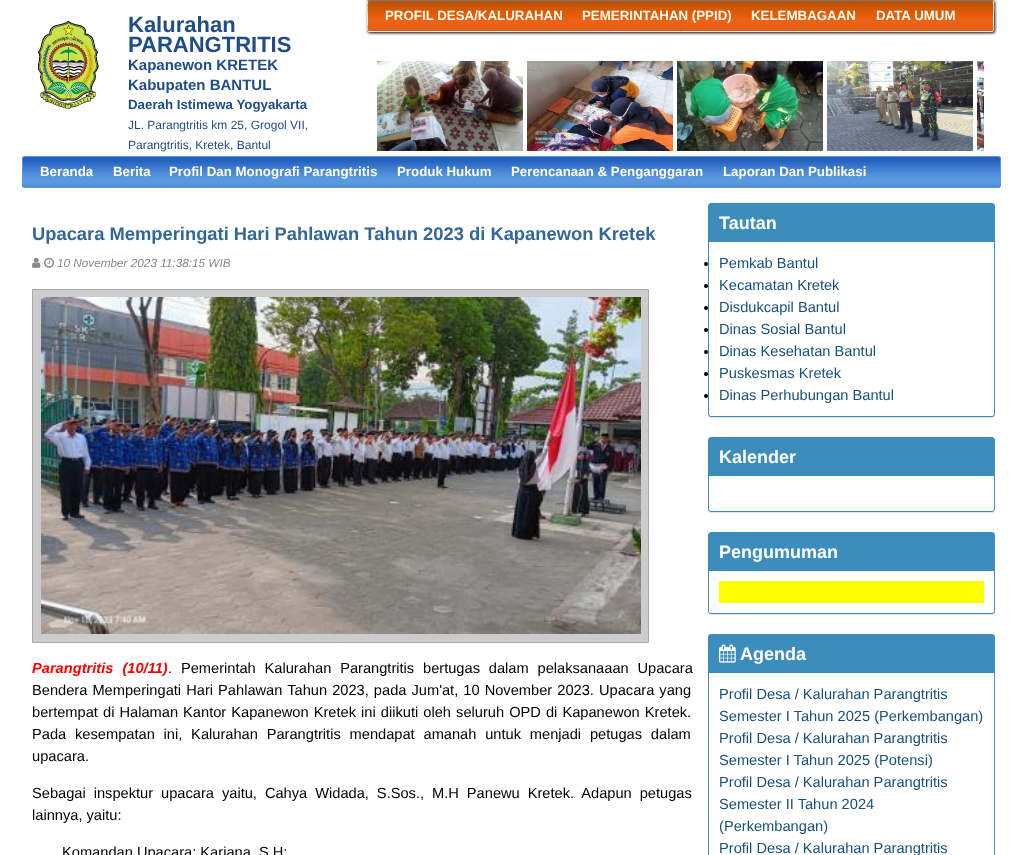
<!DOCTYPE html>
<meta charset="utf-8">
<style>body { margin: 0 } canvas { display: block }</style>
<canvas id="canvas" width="1011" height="855"></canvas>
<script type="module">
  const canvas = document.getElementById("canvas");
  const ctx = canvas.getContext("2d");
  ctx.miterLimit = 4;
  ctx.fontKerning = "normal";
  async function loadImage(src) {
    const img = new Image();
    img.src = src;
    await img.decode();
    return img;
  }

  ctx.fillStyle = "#ffffff";
  ctx.fillRect(0, 0, 1011, 855);
  ctx.drawImage(await loadImage("img1.png"), 37, 21, 62, 88);
  ctx.font = "bold 22px Liberation Sans";
  ctx.fillStyle = "#204c88";
  ctx.fillText("Kalurahan", 128, 32);
  ctx.fillText("PARANGTRITIS", 128, 52);
  ctx.font = "bold 15px Liberation Sans";
  ctx.fillText("Kapanewon KRETEK", 128, 70);
  ctx.fillText("Kabupaten BANTUL", 128, 90);
  ctx.font = "bold 13.3px Liberation Sans";
  ctx.fillText("Daerah Istimewa Yogyakarta", 128, 109);
  ctx.font = "12px Liberation Sans";
  ctx.fillText("JL. Parangtritis km 25, Grogol VII,", 128, 129);
  ctx.fillText("Parangtritis, Kretek, Bantul", 128, 149);
  ctx.fillStyle = "#000000";
  ctx.filter = "blur(1.5px)";
  ctx.beginPath();
  ctx.roundRect(368, 1, 627, 32, 2);
  ctx.fill();
  ctx.filter = "none";
  ctx.drawImage(await loadImage("img2.png"), 367, 0, 627, 32);
  ctx.beginPath();
  ctx.moveTo(368, 1);
  ctx.lineTo(369, 0.5);
  ctx.lineTo(992, 0.5);
  ctx.lineTo(993, 1);
  ctx.strokeStyle = "#777777";
  ctx.stroke();
  ctx.beginPath();
  ctx.moveTo(993, 1);
  ctx.bezierCurveTo(994.5, 2.5, 993.5, 13.5, 993.5, 16);
  ctx.lineTo(993.5, 25.5);
  ctx.bezierCurveTo(993.5, 25.5, 994.5, 31.5, 992, 31.5);
  ctx.lineTo(369, 31.5);
  ctx.bezierCurveTo(366.5, 31.5, 367.5, 25.5, 367.5, 25.5);
  ctx.lineTo(367.5, 16);
  ctx.bezierCurveTo(367.5, 13.5, 366.5, 2.5, 368, 1);
  ctx.strokeStyle = "#eeeeee";
  ctx.stroke();
  ctx.font = "bold 13.3px Liberation Sans";
  ctx.fillStyle = "#ffffef";
  ctx.fillText("PROFIL DESA/KALURAHAN", 385, 20);
  ctx.fillText("PEMERINTAHAN (PPID)", 582, 20);
  ctx.fillText("KELEMBAGAAN", 751, 20);
  ctx.fillText("DATA UMUM", 876, 20);
  ctx.drawImage(await loadImage("img3.png"), 377, 61, 146, 90);
  ctx.drawImage(await loadImage("img4.png"), 527, 61, 146, 90);
  ctx.drawImage(await loadImage("img5.png"), 677, 61, 146, 90);
  ctx.drawImage(await loadImage("img6.png"), 827, 61, 146, 90);
  ctx.drawImage(await loadImage("img7.png"), 977, 61, 7, 90);
  ctx.drawImage(await loadImage("img8.png"), 22, 156, 979, 32);
  ctx.beginPath();
  ctx.roundRect(22.5, 156.5, 978, 31, 2.5);
  ctx.strokeStyle = "#5898d8";
  ctx.stroke();
  ctx.fillText("Beranda", 40, 176);
  ctx.fillText("Berita", 113, 176);
  ctx.fillText("Profil Dan Monografi Parangtritis", 169, 176);
  ctx.fillText("Produk Hukum", 397, 176);
  ctx.fillText("Perencanaan & Penganggaran", 511, 176);
  ctx.fillText("Laporan Dan Publikasi", 723, 176);
  ctx.font = "bold 18.35px Liberation Sans";
  ctx.fillStyle = "#336699";
  ctx.fillText("Upacara Memperingati Hari Pahlawan Tahun 2023 di Kapanewon Kretek", 32, 240);
  ctx.drawImage(await loadImage("img9.png"), 32, 257, 9, 11);
  ctx.drawImage(await loadImage("img10.png"), 44, 257, 10, 11);
  ctx.font = "italic 11.75px Liberation Sans";
  ctx.fillStyle = "#888888";
  ctx.fillText("10 November 2023 11:38:15 WIB", 57, 267);
  ctx.fillStyle = "#cccccc";
  ctx.beginPath();
  ctx.rect(32.5, 289.5, 616, 353);
  ctx.fill();
  ctx.strokeStyle = "#aaaaaa";
  ctx.stroke();
  ctx.drawImage(await loadImage("img11.png"), 41, 297, 600, 337);
  ctx.wordSpacing = "5px";
  ctx.font = "italic bold 14.65px Liberation Sans";
  ctx.fillStyle = "#ff0000";
  ctx.fillText("Parangtritis (10/11)", 32, 673);
  ctx.wordSpacing = "4.75px";
  ctx.font = "14.65px Liberation Sans";
  ctx.fillStyle = "#000000";
  ctx.fillText(". Pemerintah Kalurahan Parangtritis bertugas dalam pelaksanaaan Upacara", 168, 673);
  ctx.wordSpacing = "1px";
  ctx.fillText("Bendera Memperingati Hari Pahlawan Tahun 2023, pada Jum'at, 10 November 2023. Upacara yang", 32, 695);
  ctx.fillText("bertempat di Halaman Kantor Kapanewon Kretek ini diikuti oleh seluruh OPD di Kapanewon Kretek.", 32, 717);
  ctx.wordSpacing = "4.75px";
  ctx.fillText("Pada kesempatan ini, Kalurahan Parangtritis mendapat amanah untuk menjadi petugas dalam", 32, 739);
  ctx.wordSpacing = "0px";
  ctx.fillText("upacara.", 32, 761);
  ctx.wordSpacing = "3.9px";
  ctx.fillText("Sebagai inspektur upacara yaitu, Cahya Widada, S.Sos., M.H Panewu Kretek. Adapun petugas", 32, 798);
  ctx.wordSpacing = "0px";
  ctx.fillText("lainnya, yaitu:", 32, 820);
  ctx.fillText("Komandan Upacara: Karjana, S.H;", 62, 857);
  ctx.fillStyle = "rgba(0, 0, 0, 0.1)";
  ctx.filter = "blur(0.5px)";
  ctx.beginPath();
  ctx.roundRect(708, 204, 287, 214, 3);
  ctx.fill();
  ctx.filter = "none";
  ctx.fillStyle = "#ffffff";
  ctx.beginPath();
  ctx.roundRect(708.5, 203.5, 286, 213, 2.5);
  ctx.fill();
  ctx.strokeStyle = "#3c8dbc";
  ctx.stroke();
  ctx.fillStyle = "#3c8dbc";
  ctx.fillRect(709, 204, 285, 38);
  ctx.font = "bold 18px Liberation Sans";
  ctx.fillStyle = "#ffffff";
  ctx.fillText("Tautan", 719, 229);
  ctx.fillStyle = "#000000";
  ctx.beginPath();
  ctx.arc(706, 264, 2, 0, Math.PI * 2);
  ctx.fill();
  ctx.font = "14.65px Liberation Sans";
  ctx.fillStyle = "#18507c";
  ctx.fillText("Pemkab Bantul", 719, 268);
  ctx.fillStyle = "#000000";
  ctx.beginPath();
  ctx.arc(706, 286, 2, 0, Math.PI * 2);
  ctx.fill();
  ctx.fillStyle = "#18507c";
  ctx.fillText("Kecamatan Kretek", 719, 290);
  ctx.fillStyle = "#000000";
  ctx.beginPath();
  ctx.arc(706, 308, 2, 0, Math.PI * 2);
  ctx.fill();
  ctx.fillStyle = "#18507c";
  ctx.fillText("Disdukcapil Bantul", 719, 312);
  ctx.fillStyle = "#000000";
  ctx.beginPath();
  ctx.arc(706, 330, 2, 0, Math.PI * 2);
  ctx.fill();
  ctx.fillStyle = "#18507c";
  ctx.fillText("Dinas Sosial Bantul", 719, 334);
  ctx.fillStyle = "#000000";
  ctx.beginPath();
  ctx.arc(706, 352, 2, 0, Math.PI * 2);
  ctx.fill();
  ctx.fillStyle = "#18507c";
  ctx.fillText("Dinas Kesehatan Bantul", 719, 356);
  ctx.fillStyle = "#000000";
  ctx.beginPath();
  ctx.arc(706, 374, 2, 0, Math.PI * 2);
  ctx.fill();
  ctx.fillStyle = "#18507c";
  ctx.fillText("Puskesmas Kretek", 719, 378);
  ctx.fillStyle = "#000000";
  ctx.beginPath();
  ctx.arc(706, 396, 2, 0, Math.PI * 2);
  ctx.fill();
  ctx.fillStyle = "#18507c";
  ctx.fillText("Dinas Perhubungan Bantul", 719, 400);
  ctx.fillStyle = "rgba(0, 0, 0, 0.1)";
  ctx.filter = "blur(0.5px)";
  ctx.beginPath();
  ctx.roundRect(708, 438, 287, 75, 3);
  ctx.fill();
  ctx.filter = "none";
  ctx.fillStyle = "#ffffff";
  ctx.beginPath();
  ctx.roundRect(708.5, 437.5, 286, 74, 2.5);
  ctx.fill();
  ctx.stroke();
  ctx.fillStyle = "#3c8dbc";
  ctx.fillRect(709, 438, 285, 38);
  ctx.font = "bold 18px Liberation Sans";
  ctx.fillStyle = "#ffffff";
  ctx.fillText("Kalender", 719, 463);
  ctx.fillStyle = "rgba(0, 0, 0, 0.1)";
  ctx.filter = "blur(0.5px)";
  ctx.beginPath();
  ctx.roundRect(708, 533, 287, 82, 3);
  ctx.fill();
  ctx.filter = "none";
  ctx.fillStyle = "#ffffff";
  ctx.beginPath();
  ctx.roundRect(708.5, 532.5, 286, 81, 2.5);
  ctx.fill();
  ctx.stroke();
  ctx.fillStyle = "#3c8dbc";
  ctx.fillRect(709, 533, 285, 38);
  ctx.fillStyle = "#ffffff";
  ctx.fillText("Pengumuman", 719, 558);
  ctx.fillStyle = "#ffff00";
  ctx.fillRect(719, 581, 265, 22);
  ctx.beginPath();
  ctx.roundRect(708.5, 634.5, 286, 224, 2.5);
  ctx.stroke();
  ctx.fillStyle = "#3c8dbc";
  ctx.fillRect(709, 635, 285, 38);
  ctx.drawImage(await loadImage("img12.png"), 719, 644, 17, 19);
  ctx.fillStyle = "#ffffff";
  ctx.fillText("Agenda", 740, 660);
  ctx.font = "14.65px Liberation Sans";
  ctx.fillStyle = "#18507c";
  ctx.fillText("Profil Desa / Kalurahan Parangtritis", 719, 699);
  ctx.fillText("Semester I Tahun 2025 (Perkembangan)", 719, 721);
  ctx.fillText("Profil Desa / Kalurahan Parangtritis", 719, 743);
  ctx.fillText("Semester I Tahun 2025 (Potensi)", 719, 765);
  ctx.fillText("Profil Desa / Kalurahan Parangtritis", 719, 787);
  ctx.fillText("Semester II Tahun 2024", 719, 809);
  ctx.fillText("(Perkembangan)", 719, 831);
  ctx.fillText("Profil Desa / Kalurahan Parangtritis", 719, 853);
</script>
